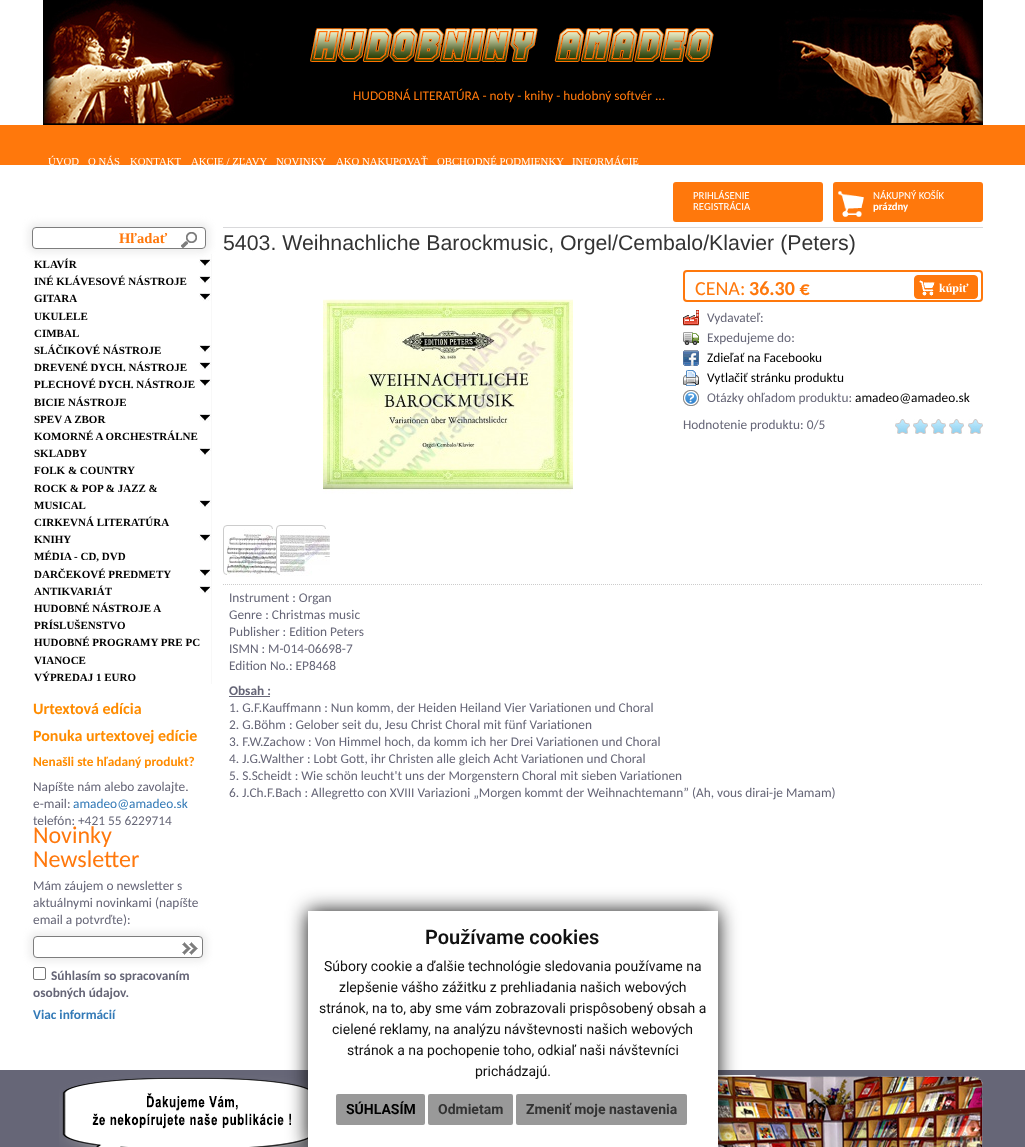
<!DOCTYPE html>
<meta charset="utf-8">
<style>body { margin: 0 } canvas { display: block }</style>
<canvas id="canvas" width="1025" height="1147"></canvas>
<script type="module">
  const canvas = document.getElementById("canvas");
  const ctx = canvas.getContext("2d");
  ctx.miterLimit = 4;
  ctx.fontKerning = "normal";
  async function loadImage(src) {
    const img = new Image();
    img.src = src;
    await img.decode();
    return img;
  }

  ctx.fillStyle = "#ffffff";
  ctx.fillRect(0, 0, 1025, 1147);
  ctx.fillStyle = "#000000";
  ctx.fillRect(43, 124, 940, 1);
  ctx.drawImage(await loadImage("img1.png"), 43, 0, 940, 124);
  ctx.drawImage(await loadImage("img2.png"), 310, 28, 404, 34);
  ctx.font = "13.35px Carlito";
  ctx.fillStyle = "#ff780c";
  ctx.fillText("HUDOBNÁ LITERATÚRA - noty - knihy - hudobný softvér ...", 353, 100);
  ctx.fillRect(0, 125, 1025, 40);
  ctx.font = "10.75px Liberation Serif";
  ctx.fillStyle = "#ffffff";
  ctx.fillText("ÚVOD", 48, 165);
  ctx.fillText("O NÁS", 88, 165);
  ctx.fillText("KONTAKT", 130, 165);
  ctx.fillText("AKCIE / ZĽAVY", 191, 165);
  ctx.fillText("NOVINKY", 276, 165);
  ctx.fillText("AKO NAKUPOVAŤ", 336, 165);
  ctx.fillText("OBCHODNÉ PODMIENKY", 437, 165);
  ctx.fillText("INFORMÁCIE", 572, 165);
  ctx.fillStyle = "#ff780c";
  ctx.beginPath();
  ctx.roundRect(673, 182, 150, 40, 3);
  ctx.fill();
  ctx.font = "10.75px Carlito";
  ctx.fillStyle = "#ffffff";
  ctx.fillText("PRIHLÁSENIE", 693, 199);
  ctx.fillText("REGISTRÁCIA", 693, 210);
  ctx.fillStyle = "#ff780c";
  ctx.beginPath();
  ctx.roundRect(833, 182, 150, 40, 3);
  ctx.fill();
  ctx.drawImage(await loadImage("img3.png"), 838, 191, 26, 26);
  ctx.fillStyle = "#ffffff";
  ctx.fillText("NÁKUPNÝ KOŠÍK", 873, 199);
  ctx.font = "bold 10.75px Carlito";
  ctx.fillText("prázdny", 873, 210);
  ctx.fillStyle = "#f8f8f8";
  ctx.fillRect(211, 254, 1, 430);
  ctx.drawImage(await loadImage("img5.png"), 199, 259, 12, 8);
  ctx.save();
  ctx.beginPath();
  ctx.moveTo(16, 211);
  ctx.lineTo(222, 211);
  ctx.lineTo(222, 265);
  ctx.lineTo(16, 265);
  ctx.closePath();
  ctx.moveTo(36, 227);
  ctx.lineTo(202, 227);
  ctx.bezierCurveTo(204, 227, 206, 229, 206, 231);
  ctx.lineTo(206, 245);
  ctx.bezierCurveTo(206, 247, 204, 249, 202, 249);
  ctx.lineTo(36, 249);
  ctx.bezierCurveTo(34, 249, 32, 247, 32, 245);
  ctx.lineTo(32, 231);
  ctx.bezierCurveTo(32, 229, 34, 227, 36, 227);
  ctx.closePath();
  ctx.clip("evenodd");
  ctx.fillStyle = "#eeeeee";
  ctx.filter = "blur(3.5px)";
  ctx.beginPath();
  ctx.roundRect(28, 223, 182, 30, 8);
  ctx.fill();
  ctx.filter = "none";
  ctx.restore();
  ctx.drawImage(await loadImage("img4.png"), 181, 232, 16, 16);
  ctx.beginPath();
  ctx.roundRect(32.5, 227.5, 173, 21, 3.5);
  ctx.strokeStyle = "#7d7d7d";
  ctx.stroke();
  ctx.font = "bold 14.5px Liberation Serif";
  ctx.fillStyle = "#ff780c";
  ctx.fillText("Hľadať", 119, 243);
  ctx.font = "bold 11px Liberation Serif";
  ctx.fillStyle = "#000000";
  ctx.fillText("KLAVÍR", 34, 268);
  ctx.fillText("INÉ KLÁVESOVÉ NÁSTROJE", 34, 285);
  ctx.drawImage(await loadImage("img5.png"), 199, 276, 12, 8);
  ctx.fillText("GITARA", 34, 302);
  ctx.drawImage(await loadImage("img5.png"), 199, 293, 12, 8);
  ctx.fillText("UKULELE", 34, 320);
  ctx.fillText("CIMBAL", 34, 337);
  ctx.fillText("SLÁČIKOVÉ NÁSTROJE", 34, 354);
  ctx.drawImage(await loadImage("img5.png"), 199, 345, 12, 8);
  ctx.fillText("DREVENÉ DYCH. NÁSTROJE", 34, 371);
  ctx.drawImage(await loadImage("img5.png"), 199, 362, 12, 8);
  ctx.fillText("PLECHOVÉ DYCH. NÁSTROJE", 34, 388);
  ctx.drawImage(await loadImage("img5.png"), 199, 379, 12, 8);
  ctx.fillText("BICIE NÁSTROJE", 34, 406);
  ctx.fillText("SPEV A ZBOR", 34, 423);
  ctx.drawImage(await loadImage("img5.png"), 199, 414, 12, 8);
  ctx.fillText("KOMORNÉ A ORCHESTRÁLNE", 34, 440);
  ctx.fillText("SKLADBY", 34, 457);
  ctx.drawImage(await loadImage("img5.png"), 199, 448, 12, 8);
  ctx.fillText("FOLK & COUNTRY", 34, 474);
  ctx.fillText("ROCK & POP & JAZZ &", 34, 492);
  ctx.fillText("MUSICAL", 34, 509);
  ctx.drawImage(await loadImage("img5.png"), 199, 500, 12, 8);
  ctx.fillText("CIRKEVNÁ LITERATÚRA", 34, 526);
  ctx.fillText("KNIHY", 34, 543);
  ctx.drawImage(await loadImage("img5.png"), 199, 534, 12, 8);
  ctx.fillText("MÉDIA - CD, DVD", 34, 560);
  ctx.fillText("DARČEKOVÉ PREDMETY", 34, 578);
  ctx.drawImage(await loadImage("img5.png"), 199, 569, 12, 8);
  ctx.fillText("ANTIKVARIÁT", 34, 595);
  ctx.drawImage(await loadImage("img5.png"), 199, 586, 12, 8);
  ctx.fillText("HUDOBNÉ NÁSTROJE A", 34, 612);
  ctx.fillText("PRÍSLUŠENSTVO", 34, 629);
  ctx.fillText("HUDOBNÉ PROGRAMY PRE PC", 34, 646);
  ctx.fillText("VIANOCE", 34, 664);
  ctx.fillText("VÝPREDAJ 1 EURO", 34, 681);
  ctx.font = "bold 16px Carlito";
  ctx.fillStyle = "#ff8c00";
  ctx.fillText("Urtextová edícia", 33, 714);
  ctx.fillText("Ponuka urtextovej edície", 33, 741);
  ctx.font = "bold 13.35px Carlito";
  ctx.fillText("Nenašli ste hľadaný produkt?", 33, 766);
  ctx.font = "13.35px Carlito";
  ctx.fillStyle = "#666677";
  ctx.fillText("Napíšte nám alebo zavolajte.", 33, 791);
  ctx.fillText("e-mail:", 33, 808);
  ctx.fillStyle = "#337ab7";
  ctx.fillText("amadeo@amadeo.sk", 73, 808);
  ctx.fillStyle = "#666677";
  ctx.fillText("telefón: +421 55 6229714", 33, 825);
  ctx.font = "24px Carlito";
  ctx.fillStyle = "#ff780c";
  ctx.fillText("Novinky", 33, 843);
  ctx.fillText("Newsletter", 33, 867);
  ctx.font = "13.35px Carlito";
  ctx.fillStyle = "#666677";
  ctx.fillText("Mám záujem o newsletter s", 33, 890);
  ctx.fillText("aktuálnymi novinkami (napíšte", 33, 907);
  ctx.fillText("email a potvrďte):", 33, 924);
  ctx.save();
  ctx.beginPath();
  ctx.moveTo(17, 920);
  ctx.lineTo(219, 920);
  ctx.lineTo(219, 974);
  ctx.lineTo(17, 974);
  ctx.closePath();
  ctx.moveTo(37, 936);
  ctx.lineTo(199, 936);
  ctx.bezierCurveTo(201, 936, 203, 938, 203, 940);
  ctx.lineTo(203, 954);
  ctx.bezierCurveTo(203, 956, 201, 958, 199, 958);
  ctx.lineTo(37, 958);
  ctx.bezierCurveTo(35, 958, 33, 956, 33, 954);
  ctx.lineTo(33, 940);
  ctx.bezierCurveTo(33, 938, 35, 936, 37, 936);
  ctx.closePath();
  ctx.clip("evenodd");
  ctx.fillStyle = "#eeeeee";
  ctx.filter = "blur(3.5px)";
  ctx.beginPath();
  ctx.roundRect(29, 932, 178, 30, 8);
  ctx.fill();
  ctx.filter = "none";
  ctx.restore();
  ctx.drawImage(await loadImage("img6.png"), 182, 942, 16, 13);
  ctx.beginPath();
  ctx.roundRect(33.5, 936.5, 169, 21, 3.5);
  ctx.stroke();
  ctx.beginPath();
  ctx.roundRect(33.5, 967.5, 12, 12, 1.5);
  ctx.strokeStyle = "#767676";
  ctx.stroke();
  ctx.font = "bold 13.35px Carlito";
  ctx.fillText("Súhlasím so spracovaním", 51, 980);
  ctx.fillText("osobných údajov.", 33, 997);
  ctx.fillStyle = "#337ab7";
  ctx.fillText("Viac informácií", 33, 1019);
  ctx.fillStyle = "#d9d9db";
  ctx.fillRect(223, 227, 760, 1);
  ctx.font = "21.3px Liberation Sans";
  ctx.fillStyle = "#333333";
  ctx.fillText("5403. Weihnachliche Barockmusic, Orgel/Cembalo/Klavier (Peters)", 223, 250);
  ctx.drawImage(await loadImage("img7.png"), 323, 299, 250, 195);
  ctx.beginPath();
  ctx.roundRect(684, 271, 298, 30, 3);
  ctx.strokeStyle = "#ff780c";
  ctx.lineWidth = 2;
  ctx.stroke();
  ctx.font = "20px Carlito";
  ctx.fillStyle = "#ff780c";
  ctx.fillText("CENA:", 695, 295);
  ctx.font = "bold 20px Carlito";
  ctx.fillText("36.30 €", 749, 295);
  ctx.beginPath();
  ctx.roundRect(914.5, 275.5, 63, 23, 3.5);
  ctx.fill();
  ctx.lineWidth = 1;
  ctx.stroke();
  ctx.drawImage(await loadImage("img8.png"), 919, 280, 16, 16);
  ctx.font = "bold 12px Liberation Serif";
  ctx.fillStyle = "#ffffff";
  ctx.fillText("kúpiť", 939, 292);
  ctx.drawImage(await loadImage("img9.png"), 683, 310, 16, 16);
  ctx.font = "13.35px Carlito";
  ctx.fillStyle = "#666677";
  ctx.fillText("Vydavateľ:", 707, 322);
  ctx.drawImage(await loadImage("img10.png"), 683, 332, 16, 13);
  ctx.fillText("Expedujeme do:", 707, 342);
  ctx.drawImage(await loadImage("img11.png"), 683, 350, 16, 16);
  ctx.fillStyle = "#000000";
  ctx.fillText("Zdieľať na Facebooku", 707, 362);
  ctx.drawImage(await loadImage("img12.png"), 683, 370, 16, 16);
  ctx.fillText("Vytlačiť stránku produktu", 707, 382);
  ctx.drawImage(await loadImage("img13.png"), 683, 390, 16, 16);
  ctx.fillStyle = "#666677";
  ctx.fillText("Otázky ohľadom produktu:", 707, 402);
  ctx.fillStyle = "#000000";
  ctx.fillText("amadeo@amadeo.sk", 855, 402);
  ctx.fillStyle = "#666677";
  ctx.fillText("Hodnotenie produktu: 0/5", 683, 429);
  ctx.drawImage(await loadImage("img14.png"), 895, 419, 15, 15);
  ctx.drawImage(await loadImage("img14.png"), 913, 419, 15, 15);
  ctx.drawImage(await loadImage("img14.png"), 931, 419, 15, 15);
  ctx.drawImage(await loadImage("img14.png"), 949, 419, 15, 15);
  ctx.drawImage(await loadImage("img14.png"), 968, 419, 15, 15);
  ctx.beginPath();
  ctx.roundRect(223.5, 525.5, 49, 49, 3.5);
  ctx.strokeStyle = "#cccccc";
  ctx.stroke();
  ctx.drawImage(await loadImage("img15.png"), 227, 529, 50, 48);
  ctx.beginPath();
  ctx.roundRect(276.5, 525.5, 49, 49, 3.5);
  ctx.stroke();
  ctx.drawImage(await loadImage("img16.png"), 280, 529, 50, 47);
  ctx.beginPath();
  ctx.moveTo(223, 584.5);
  ctx.lineTo(983, 584.5);
  ctx.setLineDash([1, 1]);
  ctx.stroke();
  ctx.fillText("Instrument : Organ", 229, 602);
  ctx.fillText("Genre : Christmas music", 229, 619);
  ctx.fillText("Publisher : Edition Peters", 229, 636);
  ctx.fillText("ISMN : M-014-06698-7", 229, 653);
  ctx.fillText("Edition No.: EP8468", 229, 670);
  ctx.font = "bold 13.35px Carlito";
  ctx.fillText("Obsah :", 229, 695);
  ctx.fillRect(229, 696, 41, 1);
  ctx.font = "13.35px Carlito";
  ctx.fillText("1. G.F.Kauffmann : Nun komm, der Heiden Heiland Vier Variationen und Choral", 229, 712);
  ctx.fillText("2. G.Böhm : Gelober seit du, Jesu Christ Choral mit fünf Variationen", 229, 729);
  ctx.fillText("3. F.W.Zachow : Von Himmel hoch, da komm ich her Drei Variationen und Choral", 229, 746);
  ctx.fillText("4. J.G.Walther : Lobt Gott, ihr Christen alle gleich Acht Variationen und Choral", 229, 763);
  ctx.fillText("5. S.Scheidt : Wie schön leucht't uns der Morgenstern Choral mit sieben Variationen", 229, 780);
  ctx.fillText("6. J.Ch.F.Bach : Allegretto con XVIII Variazioni „Morgen kommt der Weihnachtemann” (Ah, vous dirai-je Mamam)", 229, 797);
  ctx.fillRect(0, 1070, 1025, 77);
  ctx.drawImage(await loadImage("img17.png"), 59, 1075, 924, 72);
  ctx.fillStyle = "#111111";
  ctx.filter = "blur(10px)";
  ctx.beginPath();
  ctx.rect(308, 911, 410, 236);
  ctx.fill();
  ctx.filter = "none";
  ctx.fillStyle = "#ffffff";
  ctx.fillRect(308, 911, 410, 236);
  ctx.font = "600 20px Roboto";
  ctx.fillStyle = "#111111";
  ctx.fillText("Používame cookies", 425, 944);
  ctx.font = "14px Roboto";
  ctx.fillText("Súbory cookie a ďalšie technológie sledovania používame na", 324, 971);
  ctx.fillText("zlepšenie vášho zážitku z prehliadania našich webových", 339, 992);
  ctx.fillText("stránok, na to, aby sme vám zobrazovali prispôsobený obsah a", 319, 1013);
  ctx.fillText("cielené reklamy, na analýzu návštevnosti našich webových", 332, 1034);
  ctx.fillText("stránok a na pochopenie toho, odkiaľ naši návštevníci", 347, 1055);
  ctx.fillText("prichádzajú.", 475, 1076);
  ctx.fillStyle = "#999999";
  ctx.beginPath();
  ctx.roundRect(336, 1094, 89, 31, 2);
  ctx.fill();
  ctx.font = "bold 14px Roboto";
  ctx.fillStyle = "#000000";
  ctx.fillText("SÚHLASÍM", 346, 1114);
  ctx.fillStyle = "#999999";
  ctx.beginPath();
  ctx.roundRect(428, 1094, 85, 31, 2);
  ctx.fill();
  ctx.fillStyle = "#333333";
  ctx.fillText("Odmietam", 438, 1114);
  ctx.fillStyle = "#999999";
  ctx.beginPath();
  ctx.roundRect(516, 1094, 171, 31, 2);
  ctx.fill();
  ctx.fillStyle = "#333333";
  ctx.fillText("Zmeniť moje nastavenia", 526, 1114);
</script>
